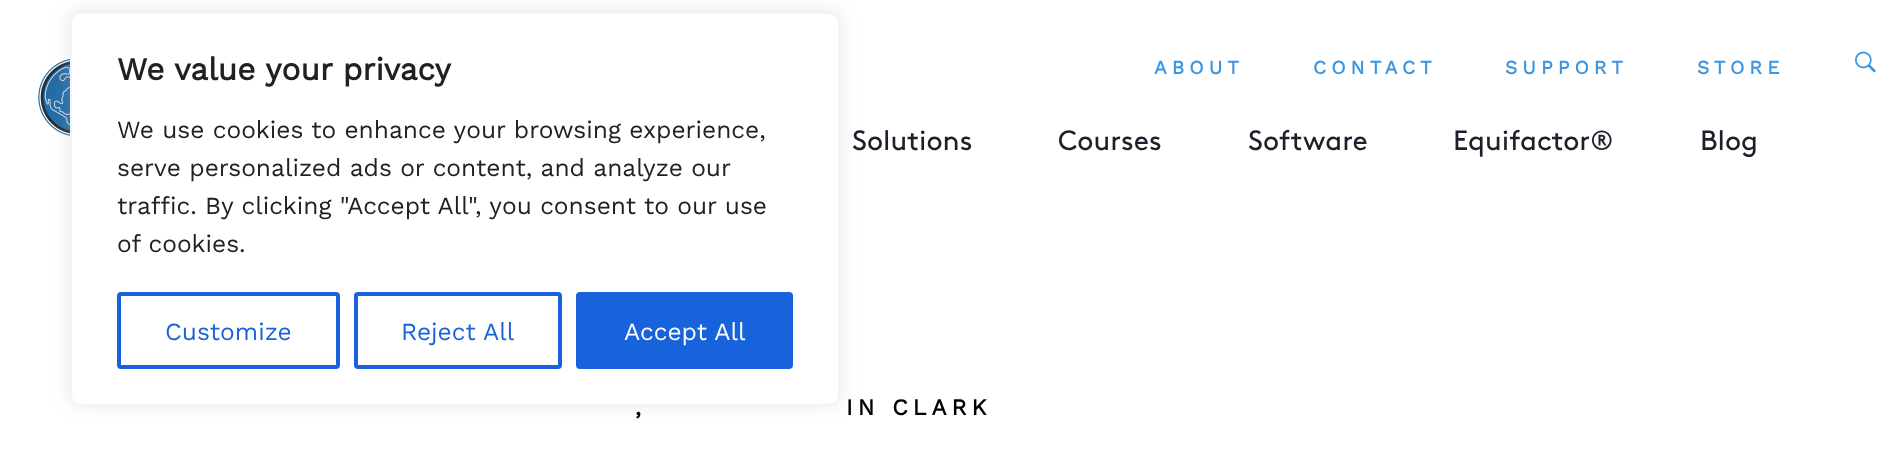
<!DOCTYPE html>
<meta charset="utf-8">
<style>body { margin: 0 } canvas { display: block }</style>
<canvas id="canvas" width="1901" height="475"></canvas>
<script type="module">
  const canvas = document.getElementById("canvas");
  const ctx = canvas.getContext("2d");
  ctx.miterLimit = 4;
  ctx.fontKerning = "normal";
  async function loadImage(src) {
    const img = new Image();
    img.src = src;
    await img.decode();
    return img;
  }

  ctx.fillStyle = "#ffffff";
  ctx.fillRect(0, 0, 1901, 475);
  ctx.drawImage(await loadImage("img1.png"), 38, 58, 32, 78);
  ctx.fillStyle = "rgba(172, 171, 171, 0.3)";
  ctx.filter = "blur(9px)";
  ctx.beginPath();
  ctx.roundRect(70, 11, 770, 393, 11);
  ctx.fill();
  ctx.filter = "none";
  ctx.fillStyle = "#ffffff";
  ctx.beginPath();
  ctx.roundRect(71, 13, 768, 392, 10);
  ctx.fill();
  ctx.strokeStyle = "#f4f4f4";
  ctx.lineWidth = 2;
  ctx.stroke();
  ctx.font = "bold 31.5px Work Sans";
  ctx.fillStyle = "#212121";
  ctx.fillText("We value your privacy", 117, 80);
  ctx.font = "24.5px Work Sans";
  ctx.fillText("We use cookies to enhance your browsing experience,", 117, 138);
  ctx.fillText("serve personalized ads or content, and analyze our", 117, 176);
  ctx.fillText("traffic. By clicking \"Accept All\", you consent to our use", 117, 214);
  ctx.fillText("of cookies.", 117, 252);
  ctx.beginPath();
  ctx.roundRect(119, 294, 219, 73, 2);
  ctx.strokeStyle = "#1863dc";
  ctx.lineWidth = 4;
  ctx.stroke();
  ctx.fillStyle = "#1863dc";
  ctx.fillText("Customize", 165, 340);
  ctx.beginPath();
  ctx.roundRect(356, 294, 204, 73, 2);
  ctx.stroke();
  ctx.fillText("Reject All", 401, 340);
  ctx.beginPath();
  ctx.roundRect(578, 294, 213, 73, 2);
  ctx.fill();
  ctx.stroke();
  ctx.fillStyle = "#ffffff";
  ctx.fillText("Accept All", 624, 340);
  ctx.letterSpacing = "5px";
  ctx.font = "bold 19.25px Work Sans";
  ctx.fillStyle = "#3a96e3";
  ctx.fillText("ABOUT", 1154, 74);
  ctx.fillText("CONTACT", 1313, 74);
  ctx.fillText("SUPPORT", 1505, 74);
  ctx.fillText("STORE", 1697, 74);
  ctx.drawImage(await loadImage("img2.png"), 1855, 51, 21, 22);
  ctx.letterSpacing = "0px";
  ctx.font = "28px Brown";
  ctx.fillStyle = "#1d202a";
  ctx.fillText("Solutions", 852, 150);
  ctx.fillText("Courses", 1058, 150);
  ctx.fillText("Software", 1248, 150);
  ctx.fillText("Equifactor®", 1453, 150);
  ctx.fillText("Blog", 1700, 150);
  ctx.letterSpacing = "5px";
  ctx.font = "bold 22.75px Work Sans";
  ctx.fillStyle = "#000000";
  ctx.fillText(",", 635, 415);
  ctx.fillText("IN CLARK", 846, 415);
</script>
